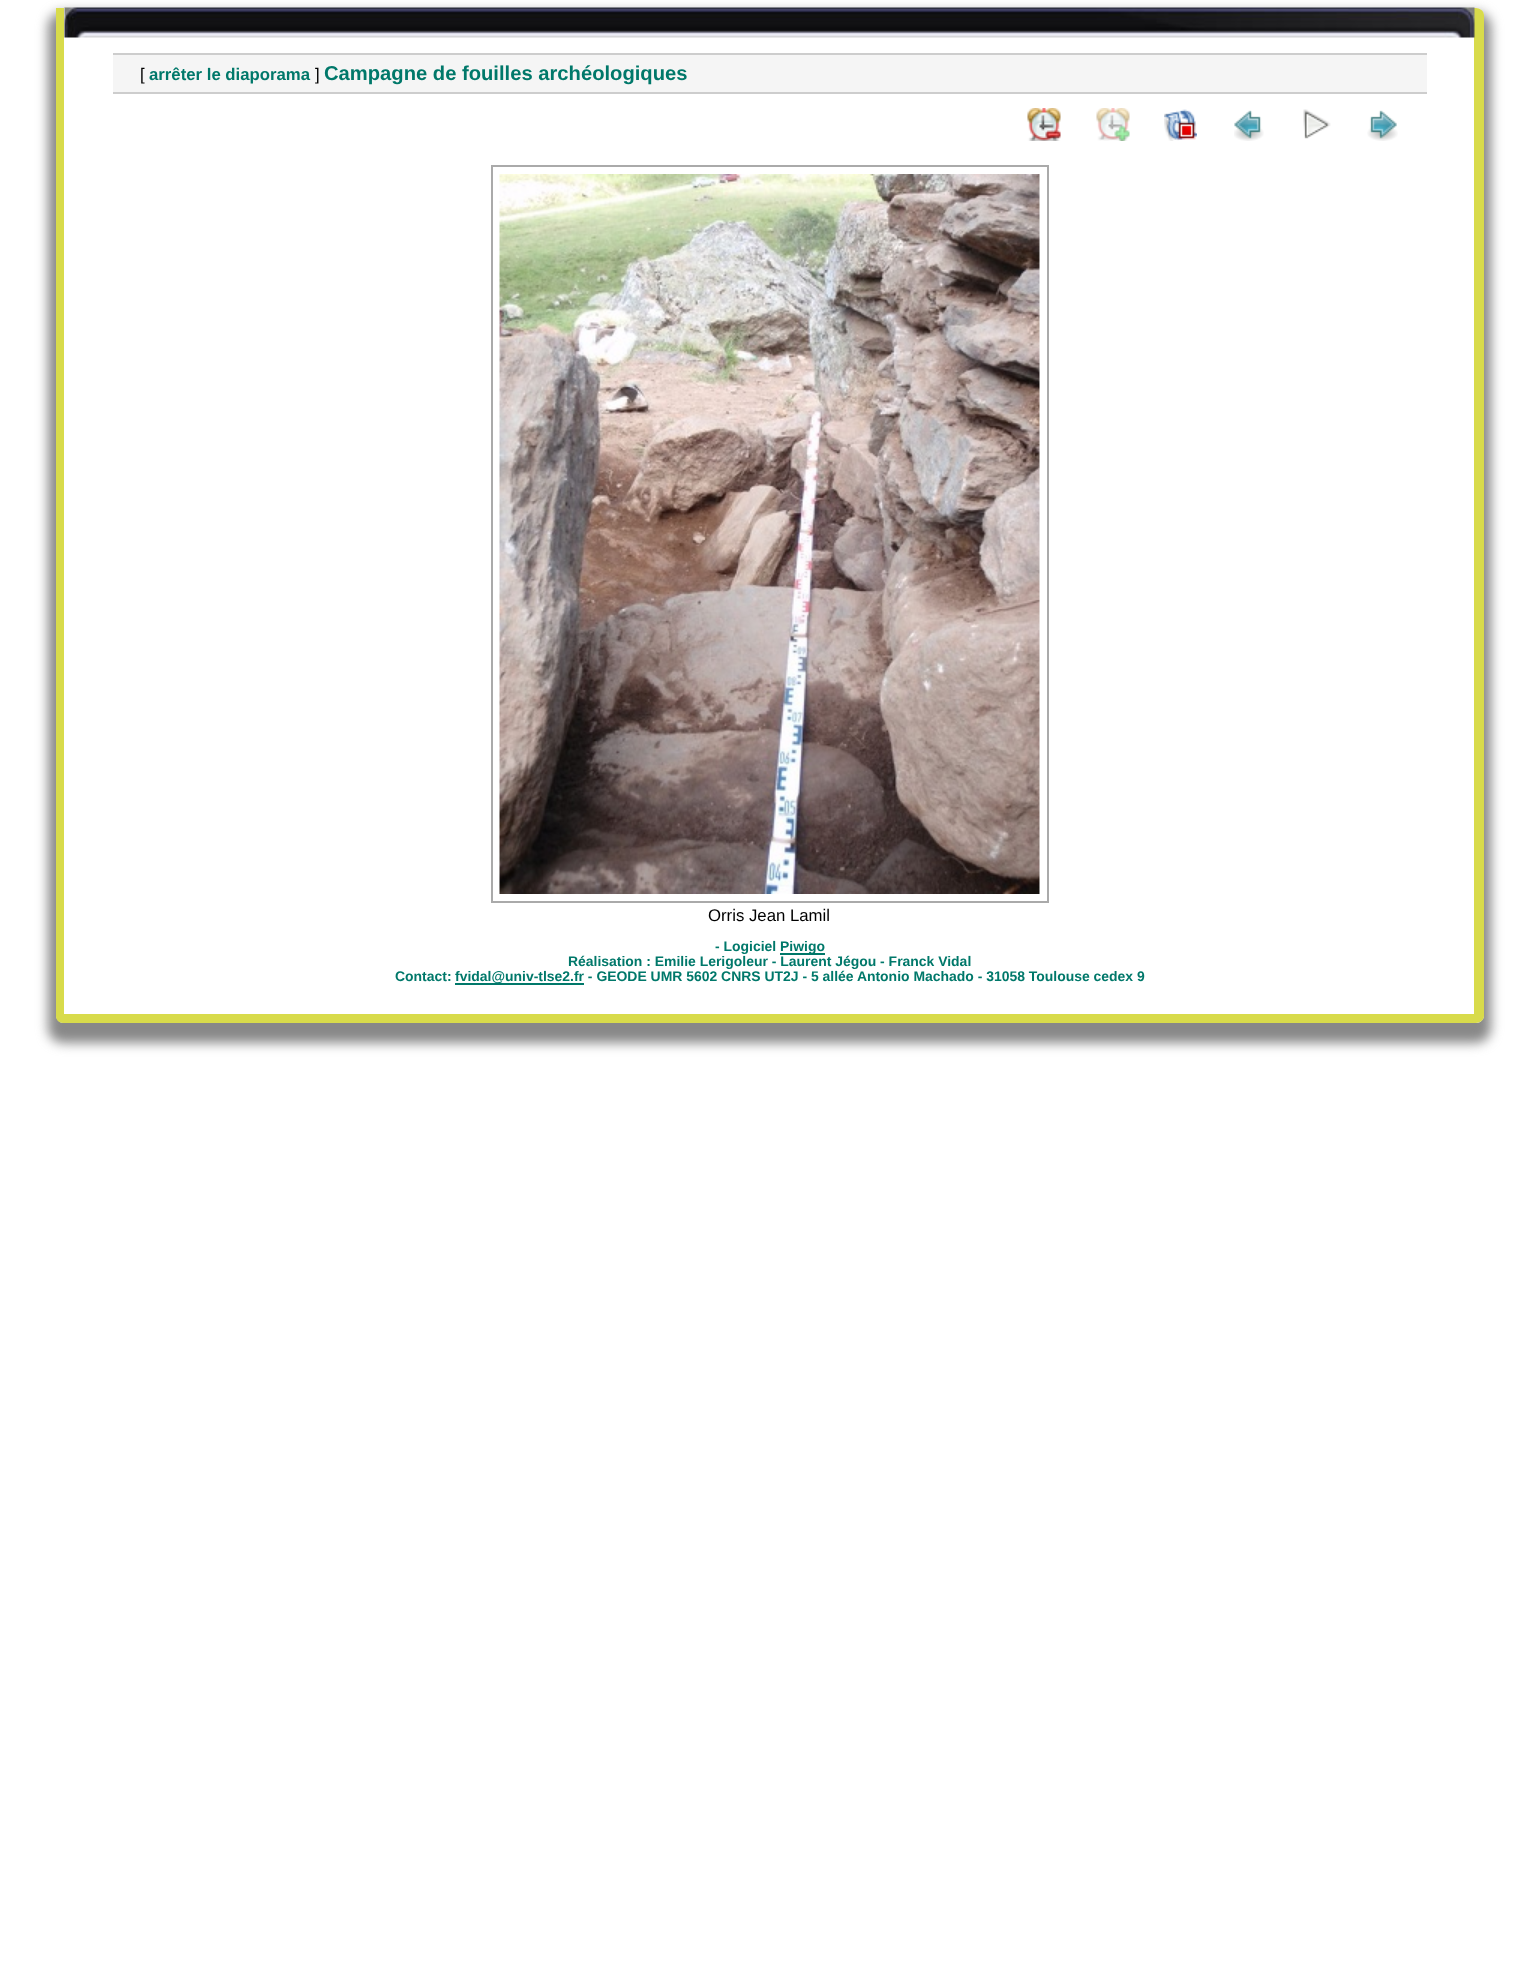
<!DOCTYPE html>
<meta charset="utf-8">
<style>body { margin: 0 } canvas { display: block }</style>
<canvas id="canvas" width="1539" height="1987"></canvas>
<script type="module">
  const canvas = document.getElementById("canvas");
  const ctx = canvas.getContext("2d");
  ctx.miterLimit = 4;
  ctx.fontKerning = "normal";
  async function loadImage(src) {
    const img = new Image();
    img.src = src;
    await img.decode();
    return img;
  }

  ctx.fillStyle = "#ffffff";
  ctx.fillRect(0, 0, 1539, 1987);
  ctx.save();
  ctx.beginPath();
  ctx.moveTo(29, 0);
  ctx.lineTo(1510, 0);
  ctx.lineTo(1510, 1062);
  ctx.lineTo(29, 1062);
  ctx.closePath();
  ctx.moveTo(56, 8);
  ctx.lineTo(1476, 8);
  ctx.bezierCurveTo(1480.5, 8, 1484, 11.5, 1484, 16);
  ctx.lineTo(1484, 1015);
  ctx.bezierCurveTo(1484, 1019.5, 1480.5, 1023, 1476, 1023);
  ctx.lineTo(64, 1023);
  ctx.bezierCurveTo(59.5, 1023, 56, 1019.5, 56, 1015);
  ctx.closePath();
  ctx.clip("evenodd");
  ctx.fillStyle = "#888888";
  ctx.filter = "blur(6px)";
  ctx.beginPath();
  ctx.roundRect(48, 12, 1443, 1031, 15);
  ctx.fill();
  ctx.filter = "none";
  ctx.restore();
  ctx.fillStyle = "#d8db4b";
  ctx.beginPath();
  ctx.moveTo(56, 8);
  ctx.lineTo(1476, 8);
  ctx.bezierCurveTo(1480, 8, 1484, 11, 1484, 15);
  ctx.lineTo(1484, 1016);
  ctx.bezierCurveTo(1484, 1020, 1480, 1023, 1476, 1023);
  ctx.lineTo(63, 1023);
  ctx.bezierCurveTo(59, 1023, 56, 1020, 56, 1016);
  ctx.closePath();
  ctx.moveTo(64, 8);
  ctx.lineTo(1474, 8);
  ctx.lineTo(1474, 1014);
  ctx.lineTo(64, 1014);
  ctx.closePath();
  ctx.fill("evenodd");
  ctx.drawImage(await loadImage("img1.png"), 64, 7, 1411, 31);
  ctx.fillStyle = "#f5f5f5";
  ctx.fillRect(113, 55, 1314, 37);
  ctx.fillStyle = "#cdcdcd";
  ctx.fillRect(113, 53, 1314, 2);
  ctx.fillRect(113, 92, 1314, 2);
  ctx.font = "16.75px Liberation Sans";
  ctx.fillStyle = "#000000";
  ctx.fillText("[", 140, 80);
  ctx.font = "bold 16.75px Liberation Sans";
  ctx.fillStyle = "#00786a";
  ctx.fillText("arrêter le diaporama", 149, 80);
  ctx.font = "16.75px Liberation Sans";
  ctx.fillStyle = "#000000";
  ctx.fillText("]", 315, 80);
  ctx.font = "bold 20.2px Liberation Sans";
  ctx.fillStyle = "#00786a";
  ctx.fillText("Campagne de fouilles archéologiques", 324, 80);
  ctx.drawImage(await loadImage("img2.png"), 1027, 108, 34, 33);
  ctx.drawImage(await loadImage("img3.png"), 1096, 108, 34, 33);
  ctx.drawImage(await loadImage("img4.png"), 1164, 109, 33, 32);
  ctx.drawImage(await loadImage("img5.png"), 1234, 110, 30, 31);
  ctx.drawImage(await loadImage("img6.png"), 1303, 109, 28, 30);
  ctx.drawImage(await loadImage("img7.png"), 1367, 110, 31, 31);
  ctx.strokeStyle = "#aaaaaa";
  ctx.lineWidth = 2;
  ctx.strokeRect(492, 166, 556, 736);
  ctx.drawImage(await loadImage("img8.png"), 499, 174, 541, 720);
  ctx.font = "16.75px Liberation Sans";
  ctx.fillStyle = "#000000";
  ctx.fillText("Orris Jean Lamil", 708, 921);
  ctx.font = "bold 13.95px Liberation Sans";
  ctx.fillStyle = "#00786a";
  ctx.fillText("- Logiciel", 715, 951);
  ctx.fillRect(780, 953, 45, 2);
  ctx.fillText("Piwigo", 780, 951);
  ctx.fillText("Réalisation : Emilie Lerigoleur - Laurent Jégou - Franck Vidal", 568, 966);
  ctx.fillText("Contact:", 395, 981);
  ctx.fillRect(455, 983, 129, 2);
  ctx.fillText("fvidal@univ-tlse2.fr - GEODE UMR 5602 CNRS UT2J - 5 allée Antonio Machado - 31058 Toulouse cedex 9", 455, 981);
</script>
